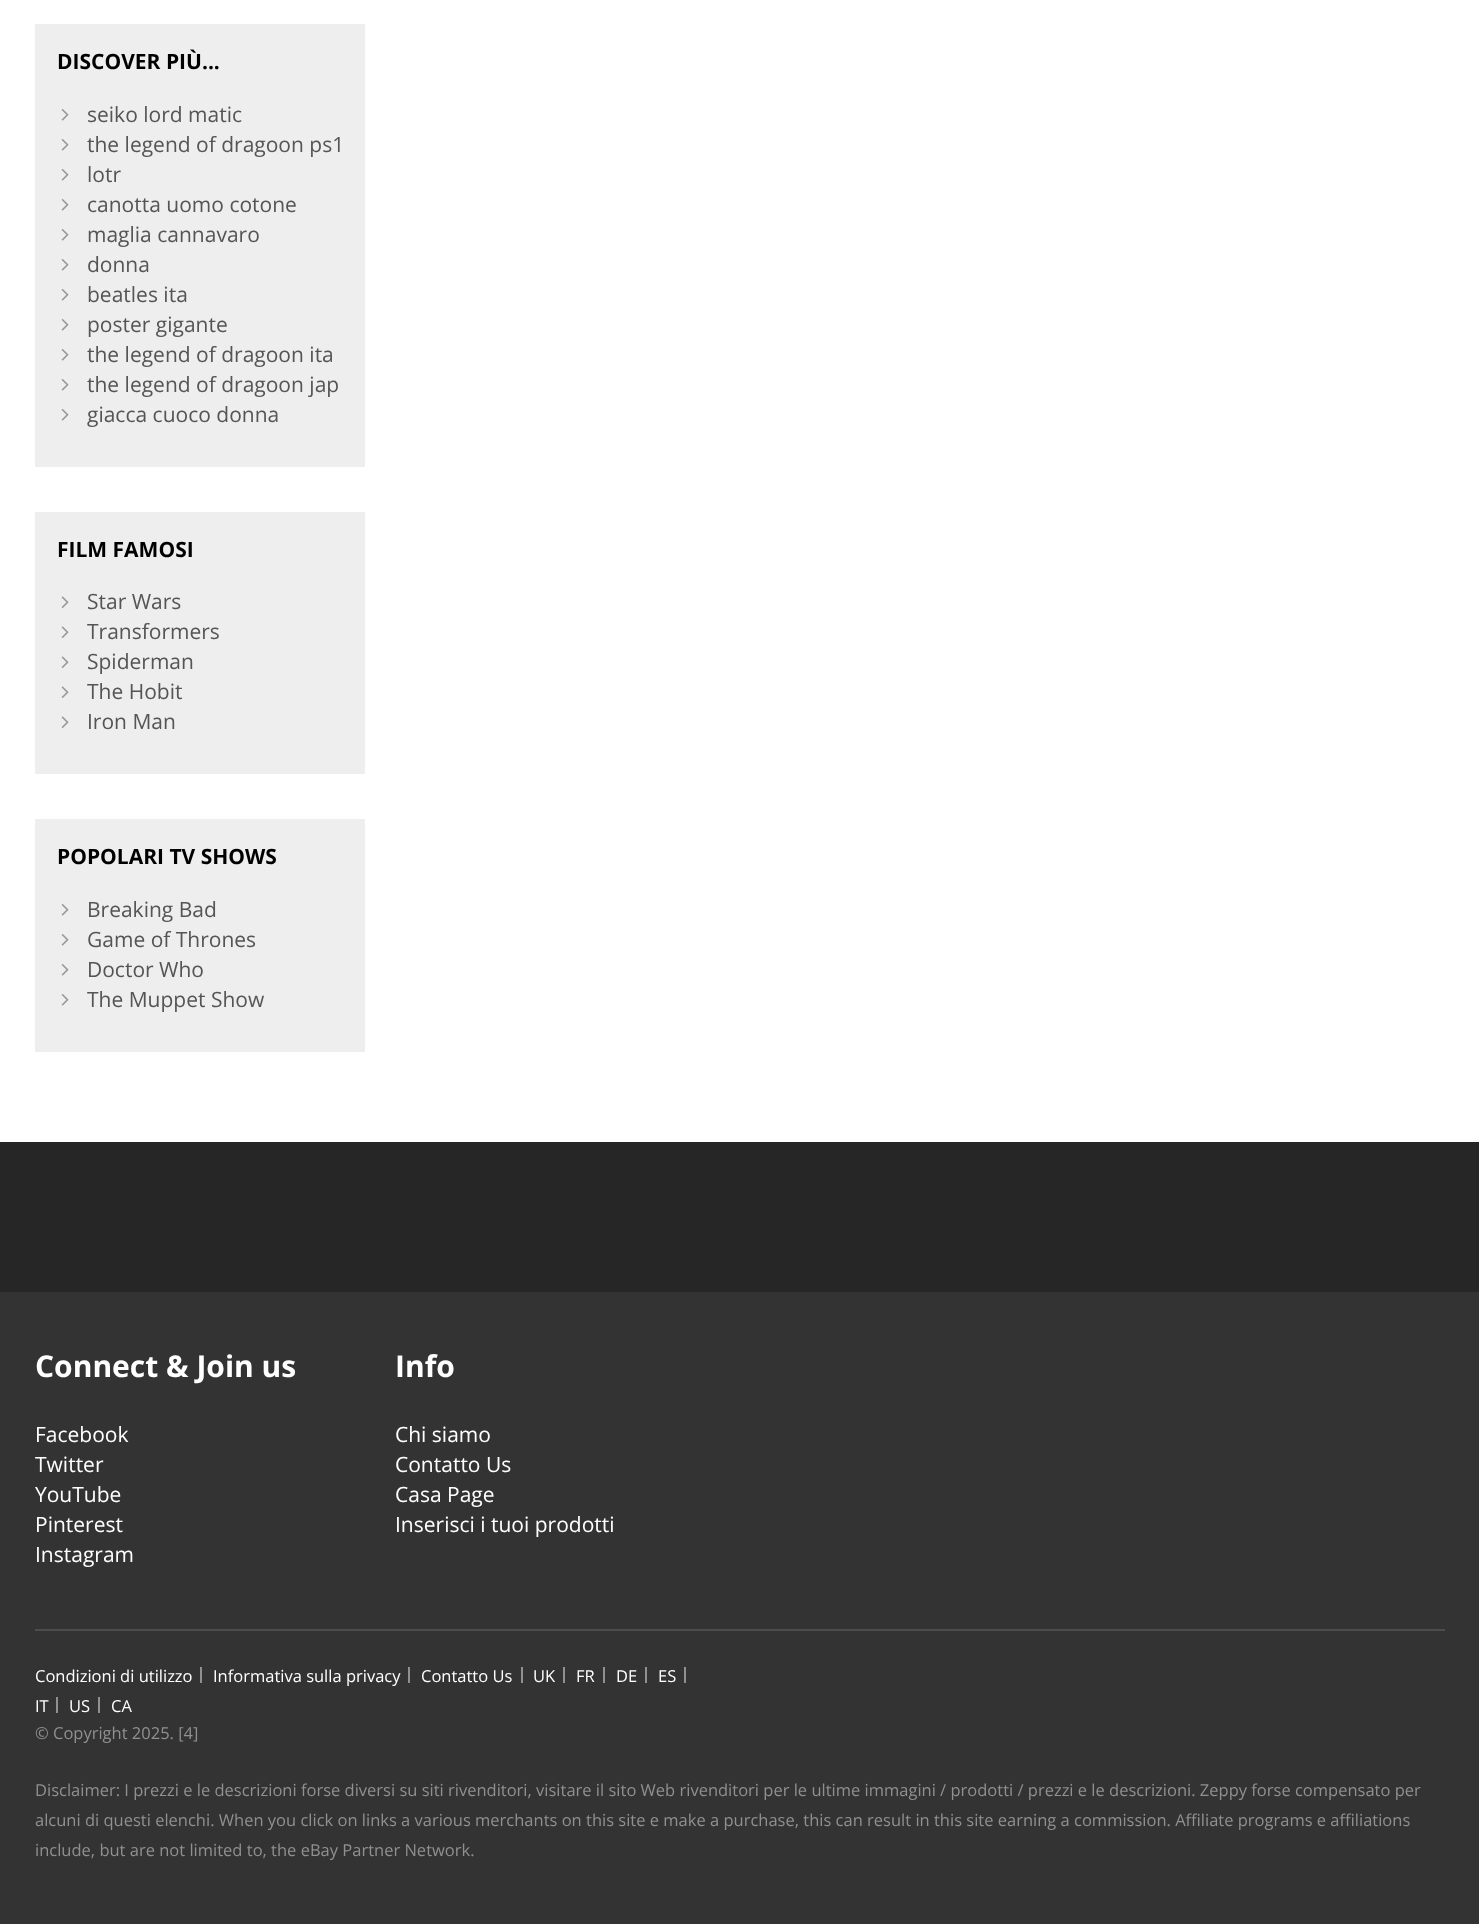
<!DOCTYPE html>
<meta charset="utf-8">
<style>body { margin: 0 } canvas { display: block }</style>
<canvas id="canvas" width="1479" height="1924"></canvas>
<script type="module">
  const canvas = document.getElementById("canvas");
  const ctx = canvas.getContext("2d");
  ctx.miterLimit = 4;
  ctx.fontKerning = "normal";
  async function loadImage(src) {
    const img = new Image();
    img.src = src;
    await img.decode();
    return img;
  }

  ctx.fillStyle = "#ffffff";
  ctx.fillRect(0, 0, 1479, 1924);
  ctx.fillStyle = "#eeeeee";
  ctx.fillRect(35, 24, 330, 443);
  ctx.font = "bold 21px Open Sans";
  ctx.fillStyle = "#000000";
  ctx.fillText("DISCOVER PIÙ...", 57, 69);
  ctx.drawImage(await loadImage("img1.png"), 61, 109, 8, 12);
  ctx.font = "21px Open Sans";
  ctx.fillStyle = "#555555";
  ctx.fillText("seiko lord matic", 87, 122);
  ctx.drawImage(await loadImage("img1.png"), 61, 139, 8, 12);
  ctx.fillText("the legend of dragoon ps1", 87, 152);
  ctx.drawImage(await loadImage("img1.png"), 61, 169, 8, 12);
  ctx.fillText("lotr", 87, 182);
  ctx.drawImage(await loadImage("img1.png"), 61, 199, 8, 12);
  ctx.fillText("canotta uomo cotone", 87, 212);
  ctx.drawImage(await loadImage("img1.png"), 61, 229, 8, 12);
  ctx.fillText("maglia cannavaro", 87, 242);
  ctx.drawImage(await loadImage("img1.png"), 61, 259, 8, 12);
  ctx.fillText("donna", 87, 272);
  ctx.drawImage(await loadImage("img1.png"), 61, 289, 8, 12);
  ctx.fillText("beatles ita", 87, 302);
  ctx.drawImage(await loadImage("img1.png"), 61, 319, 8, 12);
  ctx.fillText("poster gigante", 87, 332);
  ctx.drawImage(await loadImage("img1.png"), 61, 349, 8, 12);
  ctx.fillText("the legend of dragoon ita", 87, 362);
  ctx.drawImage(await loadImage("img1.png"), 61, 379, 8, 12);
  ctx.fillText("the legend of dragoon jap", 87, 392);
  ctx.drawImage(await loadImage("img1.png"), 61, 409, 8, 12);
  ctx.fillText("giacca cuoco donna", 87, 422);
  ctx.fillStyle = "#eeeeee";
  ctx.fillRect(35, 512, 330, 262);
  ctx.font = "bold 21px Open Sans";
  ctx.fillStyle = "#000000";
  ctx.fillText("FILM FAMOSI", 57, 557);
  ctx.drawImage(await loadImage("img2.png"), 61, 596, 8, 12);
  ctx.font = "21px Open Sans";
  ctx.fillStyle = "#555555";
  ctx.fillText("Star Wars", 87, 609);
  ctx.drawImage(await loadImage("img2.png"), 61, 626, 8, 12);
  ctx.fillText("Transformers", 87, 639);
  ctx.drawImage(await loadImage("img2.png"), 61, 656, 8, 12);
  ctx.fillText("Spiderman", 87, 669);
  ctx.drawImage(await loadImage("img2.png"), 61, 686, 8, 12);
  ctx.fillText("The Hobit", 87, 699);
  ctx.drawImage(await loadImage("img2.png"), 61, 716, 8, 12);
  ctx.fillText("Iron Man", 87, 729);
  ctx.fillStyle = "#eeeeee";
  ctx.fillRect(35, 819, 330, 233);
  ctx.font = "bold 21px Open Sans";
  ctx.fillStyle = "#000000";
  ctx.fillText("POPOLARI TV SHOWS", 57, 864);
  ctx.drawImage(await loadImage("img1.png"), 61, 904, 8, 12);
  ctx.font = "21px Open Sans";
  ctx.fillStyle = "#555555";
  ctx.fillText("Breaking Bad", 87, 917);
  ctx.drawImage(await loadImage("img1.png"), 61, 934, 8, 12);
  ctx.fillText("Game of Thrones", 87, 947);
  ctx.drawImage(await loadImage("img1.png"), 61, 964, 8, 12);
  ctx.fillText("Doctor Who", 87, 977);
  ctx.drawImage(await loadImage("img1.png"), 61, 994, 8, 12);
  ctx.fillText("The Muppet Show", 87, 1007);
  ctx.fillStyle = "#262626";
  ctx.fillRect(0, 1142, 1479, 150);
  ctx.fillStyle = "#333333";
  ctx.fillRect(0, 1292, 1479, 632);
  ctx.font = "bold 30px Open Sans";
  ctx.fillStyle = "#ffffff";
  ctx.fillText("Connect & Join us", 35, 1377);
  ctx.font = "21px Open Sans";
  ctx.fillText("Facebook", 35, 1442);
  ctx.fillText("Twitter", 35, 1472);
  ctx.fillText("YouTube", 35, 1502);
  ctx.fillText("Pinterest", 35, 1532);
  ctx.fillText("Instagram", 35, 1562);
  ctx.font = "bold 30px Open Sans";
  ctx.fillText("Info", 395, 1377);
  ctx.font = "21px Open Sans";
  ctx.fillText("Chi siamo", 395, 1442);
  ctx.fillText("Contatto Us", 395, 1472);
  ctx.fillText("Casa Page", 395, 1502);
  ctx.fillText("Inserisci i tuoi prodotti", 395, 1532);
  ctx.fillStyle = "#4d4d4d";
  ctx.fillRect(35, 1629, 1410, 2);
  ctx.fillStyle = "#909090";
  ctx.fillRect(200, 1667, 2, 16);
  ctx.font = "16.5px Open Sans";
  ctx.fillStyle = "#ffffff";
  ctx.fillText("Condizioni di utilizzo", 35, 1682);
  ctx.fillStyle = "#909090";
  ctx.fillRect(408, 1667, 2, 16);
  ctx.fillStyle = "#ffffff";
  ctx.fillText("Informativa sulla privacy", 213, 1682);
  ctx.fillStyle = "#909090";
  ctx.fillRect(521, 1667, 2, 16);
  ctx.fillStyle = "#ffffff";
  ctx.fillText("Contatto Us", 421, 1682);
  ctx.fillStyle = "#909090";
  ctx.fillRect(563, 1667, 2, 16);
  ctx.fillStyle = "#ffffff";
  ctx.fillText("UK", 533, 1682);
  ctx.fillStyle = "#909090";
  ctx.fillRect(603, 1667, 2, 16);
  ctx.fillStyle = "#ffffff";
  ctx.fillText("FR", 576, 1682);
  ctx.fillStyle = "#909090";
  ctx.fillRect(645, 1667, 2, 16);
  ctx.fillStyle = "#ffffff";
  ctx.fillText("DE", 616, 1682);
  ctx.fillStyle = "#909090";
  ctx.fillRect(684, 1667, 2, 16);
  ctx.fillStyle = "#ffffff";
  ctx.fillText("ES", 658, 1682);
  ctx.fillStyle = "#909090";
  ctx.fillRect(56, 1697, 2, 16);
  ctx.fillStyle = "#ffffff";
  ctx.fillText("IT", 35, 1712);
  ctx.fillStyle = "#909090";
  ctx.fillRect(98, 1697, 2, 16);
  ctx.fillStyle = "#ffffff";
  ctx.fillText("US", 69, 1712);
  ctx.fillText("CA", 111, 1712);
  ctx.fillStyle = "#909090";
  ctx.fillText("© Copyright 2025. [4]", 35, 1739);
  ctx.fillText("Disclaimer: I prezzi e le descrizioni forse diversi su siti rivenditori, visitare il sito Web rivenditori per le ultime immagini / prodotti / prezzi e le descrizioni. Zeppy forse compensato per", 35, 1796);
  ctx.fillText("alcuni di questi elenchi. When you click on links a various merchants on this site e make a purchase, this can result in this site earning a commission. Affiliate programs e affiliations", 35, 1826);
  ctx.fillText("include, but are not limited to, the eBay Partner Network.", 35, 1856);
</script>
